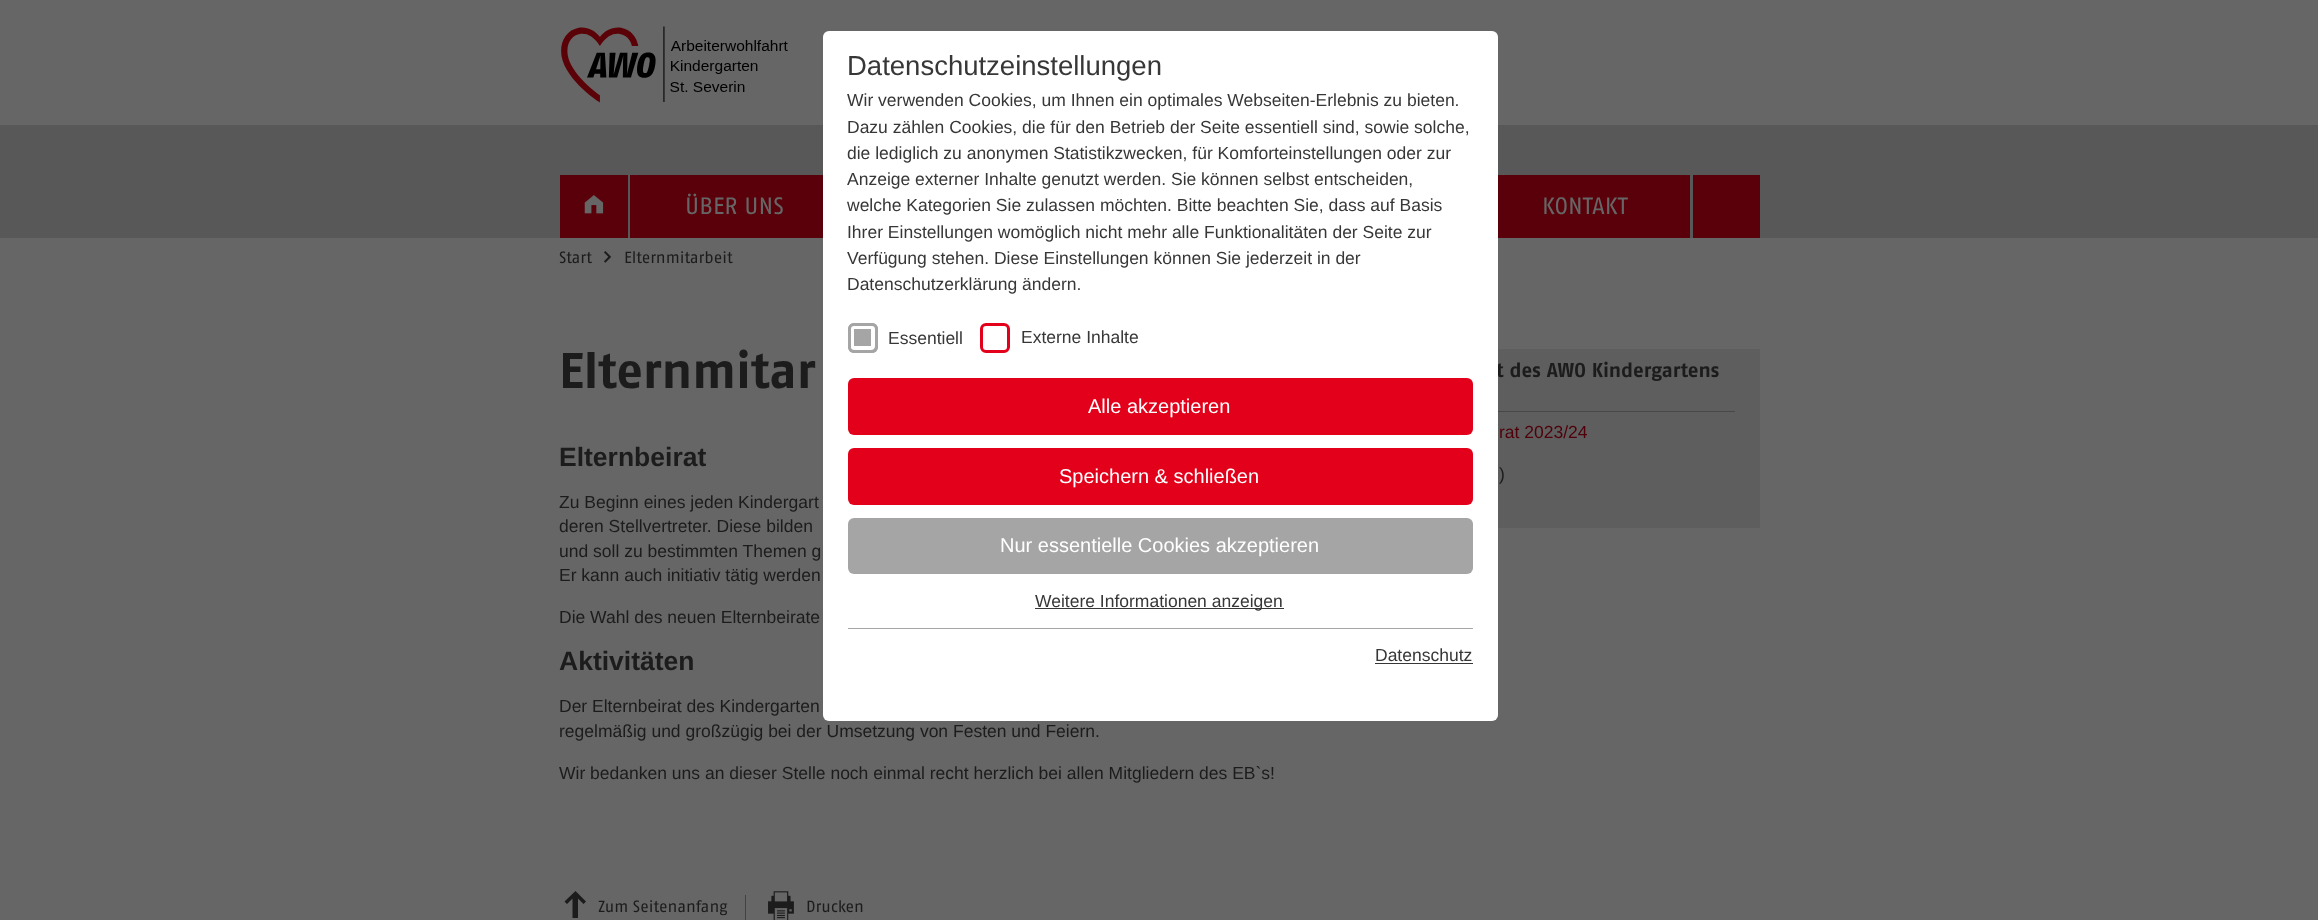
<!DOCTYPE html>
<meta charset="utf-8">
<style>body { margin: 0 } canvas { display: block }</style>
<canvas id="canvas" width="2318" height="920"></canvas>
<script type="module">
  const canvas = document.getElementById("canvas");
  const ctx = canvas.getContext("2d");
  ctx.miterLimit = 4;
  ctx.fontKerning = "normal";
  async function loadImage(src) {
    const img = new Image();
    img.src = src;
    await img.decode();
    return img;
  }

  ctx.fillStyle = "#666666";
  ctx.fillRect(0, 0, 2318, 920);
  ctx.fillStyle = "#585858";
  ctx.fillRect(0, 125, 2318, 113);
  ctx.fillStyle = "#5e5e5e";
  ctx.fillRect(1498, 349, 262, 179);
  ctx.font = "bold 20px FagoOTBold";
  ctx.fillStyle = "#1c1c1c";
  ctx.fillText("t des AWO Kindergartens", 1496, 377);
  ctx.fillStyle = "#ffffff";
  ctx.beginPath();
  ctx.roundRect(823, 31, 675, 690, 6);
  ctx.fill();
  ctx.font = "27.5px Liberation Sans";
  ctx.fillStyle = "#373737";
  ctx.fillText("Datenschutzeinstellungen", 847, 75);
  ctx.font = "17.5px Liberation Sans";
  ctx.fillText("Wir verwenden Cookies, um Ihnen ein optimales Webseiten-Erlebnis zu bieten.", 847, 106);
  ctx.fillText("Dazu zählen Cookies, die für den Betrieb der Seite essentiell sind, sowie solche,", 847, 133);
  ctx.fillText("die lediglich zu anonymen Statistikzwecken, für Komforteinstellungen oder zur", 847, 159);
  ctx.fillText("Anzeige externer Inhalte genutzt werden. Sie können selbst entscheiden,", 847, 185);
  ctx.fillText("welche Kategorien Sie zulassen möchten. Bitte beachten Sie, dass auf Basis", 847, 211);
  ctx.fillText("Ihrer Einstellungen womöglich nicht mehr alle Funktionalitäten der Seite zur", 847, 238);
  ctx.fillText("Verfügung stehen. Diese Einstellungen können Sie jederzeit in der", 847, 264);
  ctx.fillText("Datenschutzerklärung ändern.", 847, 290);
  ctx.fillStyle = "#a5a5a5";
  ctx.beginPath();
  ctx.roundRect(848, 323, 30, 30, 6);
  ctx.fill();
  ctx.beginPath();
  ctx.roundRect(852, 327, 21, 21, 2);
  ctx.strokeStyle = "#ffffff";
  ctx.lineWidth = 4;
  ctx.stroke();
  ctx.beginPath();
  ctx.roundRect(849.5, 324.5, 27, 27, 4.5);
  ctx.strokeStyle = "#a5a5a5";
  ctx.lineWidth = 3;
  ctx.stroke();
  ctx.fillStyle = "#373737";
  ctx.fillText("Essentiell", 888, 344);
  ctx.beginPath();
  ctx.roundRect(981.5, 324.5, 27, 27, 4.5);
  ctx.strokeStyle = "#e2001a";
  ctx.stroke();
  ctx.fillText("Externe Inhalte", 1021, 343);
  ctx.fillStyle = "#e2001a";
  ctx.beginPath();
  ctx.roundRect(848, 378, 625, 57, 6);
  ctx.fill();
  ctx.font = "20px Liberation Sans";
  ctx.fillStyle = "#ffffff";
  ctx.fillText("Alle akzeptieren", 1088, 413);
  ctx.fillStyle = "#e2001a";
  ctx.beginPath();
  ctx.roundRect(848, 448, 625, 57, 6);
  ctx.fill();
  ctx.fillStyle = "#ffffff";
  ctx.fillText("Speichern & schließen", 1059, 483);
  ctx.fillStyle = "#a5a5a5";
  ctx.beginPath();
  ctx.roundRect(848, 518, 625, 56, 6);
  ctx.fill();
  ctx.fillStyle = "#ffffff";
  ctx.fillText("Nur essentielle Cookies akzeptieren", 1000, 552);
  ctx.fillStyle = "#373737";
  ctx.fillRect(1035, 608, 249, 1);
  ctx.font = "17.5px Liberation Sans";
  ctx.fillText("Weitere Informationen anzeigen", 1035, 607);
  ctx.fillStyle = "#a5a5a5";
  ctx.fillRect(848, 628, 625, 1);
  ctx.fillStyle = "#373737";
  ctx.fillText("Datenschutz", 1375, 661);
  ctx.fillRect(1375, 663, 98, 1);
  ctx.drawImage(await loadImage("img1.png"), 561, 26, 227, 77);
  ctx.fillStyle = "#5a000a";
  ctx.fillRect(560, 175, 68, 63);
  ctx.drawImage(await loadImage("img2.png"), 584, 195, 20, 19);
  ctx.fillRect(630, 175, 193, 63);
  ctx.font = "23.75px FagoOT";
  ctx.fillStyle = "#666666";
  ctx.fillText("ÜBER UNS", 685, 214);
  ctx.fillStyle = "#5a000a";
  ctx.fillRect(1498, 175, 192, 63);
  ctx.fillStyle = "#666666";
  ctx.fillText("KONTAKT", 1542, 214);
  ctx.fillStyle = "#5a000a";
  ctx.fillRect(1693, 175, 67, 63);
  ctx.font = "16.25px FagoOT";
  ctx.fillStyle = "#1c1c1c";
  ctx.fillText("Start", 559, 263);
  ctx.drawImage(await loadImage("img3.png"), 604, 251, 8, 12);
  ctx.fillText("Elternmitarbeit", 624, 263);
  ctx.font = "bold 50px FagoOTBold";
  ctx.fillText("Elternmitar", 559, 388);
  ctx.font = "bold 26.5px Liberation Sans";
  ctx.fillText("Elternbeirat", 559, 466);
  ctx.font = "17.5px Liberation Sans";
  ctx.fillText("Zu Beginn eines jeden Kindergart", 559, 508);
  ctx.fillText("deren Stellvertreter. Diese bilden", 559, 532);
  ctx.fillText("und soll zu bestimmten Themen g", 559, 557);
  ctx.fillText("Er kann auch initiativ tätig werden", 559, 581);
  ctx.fillText("Die Wahl des neuen Elternbeirate", 559, 623);
  ctx.font = "bold 26.5px Liberation Sans";
  ctx.fillText("Aktivitäten", 559, 670);
  ctx.font = "17.5px Liberation Sans";
  ctx.fillText("Der Elternbeirat des Kindergarten", 559, 712);
  ctx.fillText("regelmäßig und großzügig bei der Umsetzung von Festen und Feiern.", 559, 737);
  ctx.fillText("Wir bedanken uns an dieser Stelle noch einmal recht herzlich bei allen Mitgliedern des EB`s!", 559, 779);
  ctx.fillStyle = "#484848";
  ctx.fillRect(1498, 411, 237, 1);
  ctx.fillStyle = "#50000a";
  ctx.fillText("rat 2023/24", 1499, 438);
  ctx.fillStyle = "#1c1c1c";
  ctx.fillText(")", 1499, 480);
  ctx.beginPath();
  ctx.moveTo(586, 901.5);
  ctx.lineTo(575.5, 891);
  ctx.lineTo(564.5, 901.5);
  ctx.lineTo(567, 904);
  ctx.lineTo(572.5, 898.5);
  ctx.lineTo(572.5, 918);
  ctx.lineTo(578, 918);
  ctx.lineTo(578, 898.5);
  ctx.lineTo(583.5, 904);
  ctx.closePath();
  ctx.fill();
  ctx.font = "16.25px FagoOT";
  ctx.fillText("Zum Seitenanfang", 598, 912);
  ctx.fillStyle = "#424242";
  ctx.fillRect(745, 895, 1, 25);
  ctx.drawImage(await loadImage("img4.png"), 768, 891, 26, 29);
  ctx.fillStyle = "#1c1c1c";
  ctx.fillText("Drucken", 806, 912);
</script>
